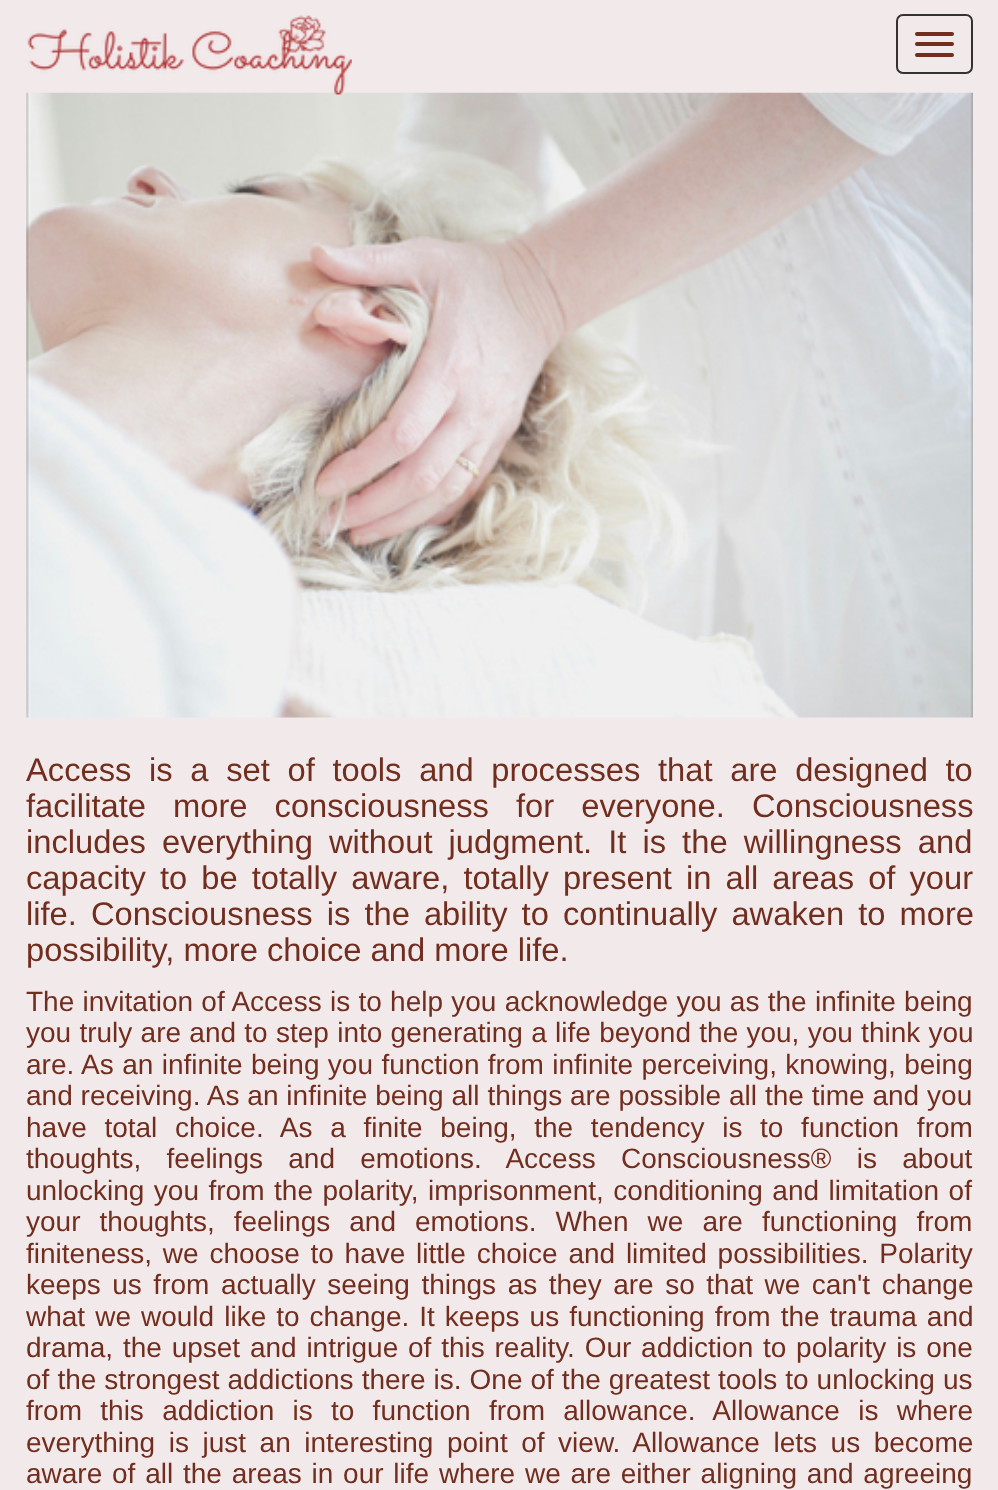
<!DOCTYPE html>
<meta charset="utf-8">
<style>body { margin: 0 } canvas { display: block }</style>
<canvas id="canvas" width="998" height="1490"></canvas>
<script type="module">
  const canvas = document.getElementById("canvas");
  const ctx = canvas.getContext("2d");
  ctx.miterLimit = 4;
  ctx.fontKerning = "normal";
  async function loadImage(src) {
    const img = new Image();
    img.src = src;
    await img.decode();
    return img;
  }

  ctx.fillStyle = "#f2e9eb";
  ctx.fillRect(0, 0, 998, 1490);
  ctx.drawImage(await loadImage("img2.png"), 26, 92, 947, 626);
  ctx.drawImage(await loadImage("img1.png"), 27, 15, 325, 80);
  ctx.beginPath();
  ctx.roundRect(897, 15, 75, 58, 6);
  ctx.strokeStyle = "#333333";
  ctx.lineWidth = 2;
  ctx.stroke();
  ctx.fillStyle = "#712e1e";
  ctx.beginPath();
  ctx.roundRect(915, 32, 39, 4, 2);
  ctx.fill();
  ctx.beginPath();
  ctx.roundRect(915, 42, 39, 4, 2);
  ctx.fill();
  ctx.beginPath();
  ctx.roundRect(915, 53, 39, 4, 2);
  ctx.fill();
  ctx.wordSpacing = "8.6px";
  ctx.font = "32.7px Liberation Sans";
  ctx.fillText("Access is a set of tools and processes that are designed to", 26, 781);
  ctx.wordSpacing = "18px";
  ctx.fillText("facilitate more consciousness for everyone. Consciousness", 26, 817);
  ctx.wordSpacing = "7px";
  ctx.fillText("includes everything without judgment. It is the willingness and", 26, 853);
  ctx.wordSpacing = "5px";
  ctx.fillText("capacity to be totally aware, totally present in all areas of your", 26, 889);
  ctx.fillText("life. Consciousness is the ability to continually awaken to more", 26, 925);
  ctx.wordSpacing = "0px";
  ctx.fillText("possibility, more choice and more life.", 26, 961);
  ctx.wordSpacing = "0.5px";
  ctx.font = "28px Liberation Sans";
  ctx.fillText("The invitation of Access is to help you acknowledge you as the infinite being", 26, 1011);
  ctx.fillText("you truly are and to step into generating a life beyond the you, you think you", 26, 1042);
  ctx.wordSpacing = "0.6px";
  ctx.fillText("are. As an infinite being you function from infinite perceiving, knowing, being", 26, 1074);
  ctx.wordSpacing = "0.1px";
  ctx.fillText("and receiving. As an infinite being all things are possible all the time and you", 26, 1105);
  ctx.wordSpacing = "9.9px";
  ctx.fillText("have total choice. As a finite being, the tendency is to function from", 26, 1137);
  ctx.wordSpacing = "17.5px";
  ctx.fillText("thoughts, feelings and emotions. Access Consciousness® is about", 26, 1168);
  ctx.wordSpacing = "1.75px";
  ctx.fillText("unlocking you from the polarity, imprisonment, conditioning and limitation of", 26, 1200);
  ctx.wordSpacing = "11.25px";
  ctx.fillText("your thoughts, feelings and emotions. When we are functioning from", 26, 1231);
  ctx.wordSpacing = "3px";
  ctx.fillText("finiteness, we choose to have little choice and limited possibilities. Polarity", 26, 1263);
  ctx.wordSpacing = "3.75px";
  ctx.fillText("keeps us from actually seeing things as they are so that we can't change", 26, 1294);
  ctx.wordSpacing = "2.25px";
  ctx.fillText("what we would like to change. It keeps us functioning from the trauma and", 26, 1326);
  ctx.wordSpacing = "2px";
  ctx.fillText("drama, the upset and intrigue of this reality. Our addiction to polarity is one", 26, 1357);
  ctx.wordSpacing = "0.25px";
  ctx.fillText("of the strongest addictions there is. One of the greatest tools to unlocking us", 26, 1389);
  ctx.wordSpacing = "10.5px";
  ctx.fillText("from this addiction is to function from allowance. Allowance is where", 26, 1420);
  ctx.wordSpacing = "5.75px";
  ctx.fillText("everything is just an interesting point of view. Allowance lets us become", 26, 1452);
  ctx.wordSpacing = "2px";
  ctx.fillText("aware of all the areas in our life where we are either aligning and agreeing", 26, 1483);
</script>
